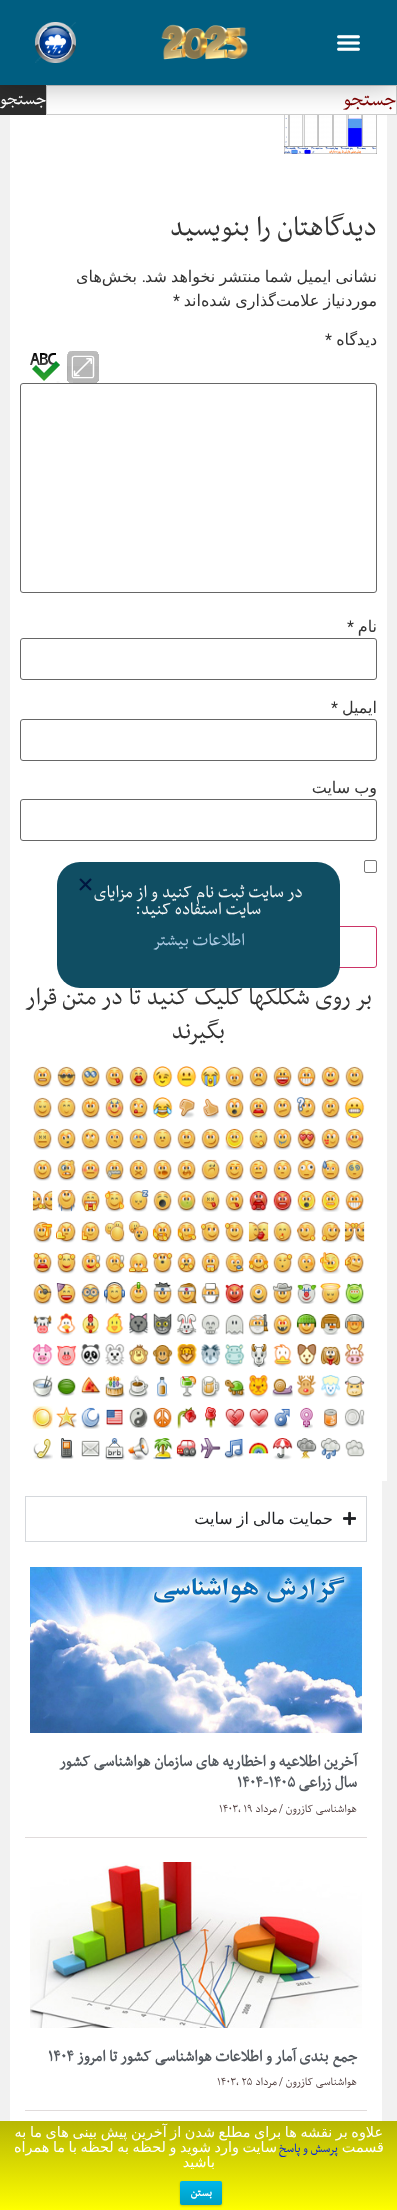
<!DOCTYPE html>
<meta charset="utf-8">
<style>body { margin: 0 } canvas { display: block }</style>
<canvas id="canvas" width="397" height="2210"></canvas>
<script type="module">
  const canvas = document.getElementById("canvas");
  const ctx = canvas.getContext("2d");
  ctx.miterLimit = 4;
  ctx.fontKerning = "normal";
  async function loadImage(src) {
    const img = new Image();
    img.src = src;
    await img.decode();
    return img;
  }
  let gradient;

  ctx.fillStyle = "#f1f1f1";
  ctx.fillRect(0, 0, 397, 2210);
  ctx.fillStyle = "#ffffff";
  ctx.beginPath();
  ctx.rect(46.5, 85.5, 350, 29);
  ctx.fill();
  ctx.strokeStyle = "#cdcdcd";
  ctx.stroke();
  ctx.fillStyle = "#2d2d2d";
  ctx.fillRect(0, 85, 46, 30);
  ctx.fillStyle = "#ffffff";
  ctx.fillRect(10, 115, 377, 1366);
  ctx.drawImage(await loadImage("img4.png"), 284, 115, 93, 39);
  ctx.fillStyle = "rgba(0, 0, 0, 0.3)";
  ctx.filter = "blur(15px)";
  ctx.beginPath();
  ctx.rect(0, 0, 397, 85);
  ctx.fill();
  ctx.filter = "none";
  ctx.fillStyle = "#005e81";
  ctx.fillRect(0, 0, 397, 85);
  ctx.drawImage(await loadImage("img1.png"), 337, 35, 23, 16);
  ctx.drawImage(await loadImage("img2.png"), 161, 24, 87, 36);
  ctx.drawImage(await loadImage("img3.png"), 35, 22, 41, 41);
  ctx.direction = "rtl";
  ctx.font = "23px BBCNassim";
  ctx.fillStyle = "#790101";
  ctx.fillText("جستجو", 396, 105);
  ctx.font = "20px BBCNassim";
  ctx.fillStyle = "#ffffff";
  ctx.fillText("جستجو", 46, 104);
  ctx.font = "32px BBCNassim";
  ctx.fillStyle = "#333333";
  ctx.fillText("دیدگاهتان را بنویسید", 377, 235);
  ctx.wordSpacing = "-1px";
  ctx.font = "16px DejaVu Sans";
  ctx.fillText("نشانی ایمیل شما منتشر نخواهد شد", 377, 282);
  ctx.wordSpacing = "0px";
  ctx.font = "16px Roboto";
  ctx.fillText(".", 146, 282);
  ctx.font = "16px DejaVu Sans";
  ctx.fillText("بخش‌های", 137, 282);
  ctx.wordSpacing = "-1px";
  ctx.fillText("موردنیاز علامت‌گذاری شده‌اند", 377, 306);
  ctx.wordSpacing = "0px";
  ctx.direction = "ltr";
  ctx.font = "16px Roboto";
  ctx.fillText("*", 173, 306);
  ctx.direction = "rtl";
  ctx.font = "16px DejaVu Sans";
  ctx.fillText("دیدگاه", 377, 345);
  ctx.direction = "ltr";
  ctx.font = "16px Roboto";
  ctx.fillText("*", 325, 345);
  ctx.drawImage(await loadImage("img5.png"), 67, 351, 32, 32);
  ctx.drawImage(await loadImage("img6.png"), 30, 353, 30, 30);
  ctx.beginPath();
  ctx.roundRect(20.5, 383.5, 356, 209, 2.5);
  ctx.strokeStyle = "#666666";
  ctx.stroke();
  ctx.direction = "rtl";
  ctx.font = "16px DejaVu Sans";
  ctx.fillText("نام", 377, 632);
  ctx.direction = "ltr";
  ctx.font = "16px Roboto";
  ctx.fillText("*", 347, 632);
  ctx.beginPath();
  ctx.roundRect(20.5, 638.5, 356, 41, 2.5);
  ctx.stroke();
  ctx.direction = "rtl";
  ctx.font = "16px DejaVu Sans";
  ctx.fillText("ایمیل", 377, 713);
  ctx.direction = "ltr";
  ctx.font = "16px Roboto";
  ctx.fillText("*", 331, 713);
  ctx.beginPath();
  ctx.roundRect(20.5, 719.5, 356, 41, 2.5);
  ctx.stroke();
  ctx.wordSpacing = "-1px";
  ctx.direction = "rtl";
  ctx.font = "16px DejaVu Sans";
  ctx.fillText("وب‌ سایت", 377, 793);
  ctx.beginPath();
  ctx.roundRect(20.5, 799.5, 356, 41, 2.5);
  ctx.stroke();
  ctx.beginPath();
  ctx.roundRect(364.5, 860.5, 12, 12, 1.5);
  ctx.strokeStyle = "#767676";
  ctx.stroke();
  ctx.beginPath();
  ctx.roundRect(240.5, 926.5, 136, 41, 2.5);
  ctx.strokeStyle = "#cc3366";
  ctx.stroke();
  ctx.wordSpacing = "0px";
  ctx.font = "28px BBCNassim";
  ctx.fillText("بر روی شکلکها کلیک کنید تا در متن قرار", 372, 1004);
  ctx.fillText("بگیرند", 225, 1038);
  ctx.drawImage(await loadImage("img7.png"), 345, 1066, 19, 22);
  ctx.drawImage(await loadImage("img8.png"), 321, 1066, 19, 22);
  ctx.drawImage(await loadImage("img9.png"), 297, 1066, 19, 22);
  ctx.drawImage(await loadImage("img10.png"), 273, 1066, 19, 22);
  ctx.drawImage(await loadImage("img11.png"), 249, 1066, 19, 22);
  ctx.drawImage(await loadImage("img12.png"), 225, 1066, 19, 22);
  ctx.drawImage(await loadImage("img13.png"), 200, 1066, 21, 22);
  ctx.drawImage(await loadImage("img14.png"), 176, 1066, 21, 22);
  ctx.drawImage(await loadImage("img15.png"), 152, 1066, 21, 22);
  ctx.drawImage(await loadImage("img16.png"), 129, 1066, 19, 22);
  ctx.drawImage(await loadImage("img17.png"), 105, 1066, 19, 22);
  ctx.drawImage(await loadImage("img18.png"), 81, 1066, 19, 22);
  ctx.drawImage(await loadImage("img19.png"), 57, 1066, 19, 22);
  ctx.drawImage(await loadImage("img20.png"), 33, 1066, 19, 22);
  ctx.drawImage(await loadImage("img21.png"), 344, 1097, 21, 22);
  ctx.drawImage(await loadImage("img22.png"), 321, 1097, 19, 22);
  ctx.drawImage(await loadImage("img23.png"), 296, 1097, 20, 22);
  ctx.drawImage(await loadImage("img24.png"), 273, 1097, 19, 22);
  ctx.drawImage(await loadImage("img25.png"), 249, 1097, 19, 22);
  ctx.drawImage(await loadImage("img26.png"), 225, 1097, 19, 22);
  ctx.drawImage(await loadImage("img27.png"), 203, 1098, 16, 21);
  ctx.drawImage(await loadImage("img28.png"), 179, 1098, 16, 20);
  ctx.drawImage(await loadImage("img29.png"), 152, 1097, 21, 22);
  ctx.drawImage(await loadImage("img30.png"), 129, 1097, 19, 22);
  ctx.drawImage(await loadImage("img31.png"), 105, 1097, 19, 22);
  ctx.drawImage(await loadImage("img32.png"), 81, 1097, 19, 22);
  ctx.drawImage(await loadImage("img33.png"), 57, 1097, 19, 22);
  ctx.drawImage(await loadImage("img34.png"), 33, 1097, 19, 22);
  ctx.drawImage(await loadImage("img35.png"), 345, 1128, 19, 22);
  ctx.drawImage(await loadImage("img36.png"), 321, 1128, 19, 22);
  ctx.drawImage(await loadImage("img37.png"), 297, 1128, 19, 22);
  ctx.drawImage(await loadImage("img38.png"), 273, 1128, 19, 22);
  ctx.drawImage(await loadImage("img39.png"), 249, 1128, 19, 22);
  ctx.drawImage(await loadImage("img40.png"), 225, 1128, 19, 22);
  ctx.drawImage(await loadImage("img41.png"), 201, 1128, 19, 22);
  ctx.drawImage(await loadImage("img42.png"), 177, 1128, 19, 22);
  ctx.drawImage(await loadImage("img43.png"), 153, 1128, 19, 22);
  ctx.drawImage(await loadImage("img44.png"), 129, 1128, 19, 22);
  ctx.drawImage(await loadImage("img45.png"), 105, 1128, 19, 22);
  ctx.drawImage(await loadImage("img46.png"), 81, 1128, 19, 22);
  ctx.drawImage(await loadImage("img47.png"), 57, 1128, 19, 22);
  ctx.drawImage(await loadImage("img48.png"), 33, 1128, 19, 22);
  ctx.drawImage(await loadImage("img49.png"), 345, 1159, 19, 22);
  ctx.drawImage(await loadImage("img50.png"), 321, 1159, 19, 22);
  ctx.drawImage(await loadImage("img51.png"), 297, 1159, 19, 22);
  ctx.drawImage(await loadImage("img52.png"), 273, 1159, 19, 22);
  ctx.drawImage(await loadImage("img53.png"), 249, 1159, 19, 22);
  ctx.drawImage(await loadImage("img54.png"), 225, 1159, 19, 22);
  ctx.drawImage(await loadImage("img55.png"), 201, 1159, 19, 22);
  ctx.drawImage(await loadImage("img56.png"), 177, 1159, 19, 22);
  ctx.drawImage(await loadImage("img57.png"), 153, 1159, 19, 22);
  ctx.drawImage(await loadImage("img58.png"), 129, 1159, 19, 22);
  ctx.drawImage(await loadImage("img59.png"), 105, 1159, 19, 22);
  ctx.drawImage(await loadImage("img60.png"), 81, 1159, 19, 22);
  ctx.drawImage(await loadImage("img61.png"), 57, 1159, 19, 22);
  ctx.drawImage(await loadImage("img62.png"), 33, 1159, 19, 22);
  ctx.drawImage(await loadImage("img63.png"), 345, 1190, 19, 22);
  ctx.drawImage(await loadImage("img64.png"), 321, 1190, 19, 22);
  ctx.drawImage(await loadImage("img65.png"), 297, 1190, 19, 22);
  ctx.drawImage(await loadImage("img66.png"), 273, 1190, 19, 22);
  ctx.drawImage(await loadImage("img67.png"), 249, 1190, 19, 22);
  ctx.drawImage(await loadImage("img68.png"), 225, 1190, 19, 22);
  ctx.drawImage(await loadImage("img69.png"), 201, 1190, 19, 22);
  ctx.drawImage(await loadImage("img70.png"), 177, 1190, 19, 22);
  ctx.drawImage(await loadImage("img71.png"), 153, 1190, 19, 22);
  ctx.drawImage(await loadImage("img72.png"), 129, 1190, 20, 22);
  ctx.drawImage(await loadImage("img73.png"), 104, 1190, 21, 22);
  ctx.drawImage(await loadImage("img74.png"), 81, 1190, 19, 22);
  ctx.drawImage(await loadImage("img75.png"), 57, 1190, 19, 22);
  ctx.drawImage(await loadImage("img76.png"), 32, 1190, 21, 21);
  ctx.drawImage(await loadImage("img77.png"), 344, 1221, 21, 21);
  ctx.drawImage(await loadImage("img78.png"), 321, 1221, 20, 22);
  ctx.drawImage(await loadImage("img79.png"), 296, 1221, 20, 21);
  ctx.drawImage(await loadImage("img80.png"), 273, 1221, 19, 22);
  ctx.drawImage(await loadImage("img81.png"), 248, 1221, 21, 21);
  ctx.drawImage(await loadImage("img82.png"), 224, 1221, 20, 22);
  ctx.drawImage(await loadImage("img83.png"), 200, 1221, 20, 22);
  ctx.drawImage(await loadImage("img84.png"), 177, 1221, 20, 22);
  ctx.drawImage(await loadImage("img85.png"), 152, 1221, 20, 22);
  ctx.drawImage(await loadImage("img86.png"), 128, 1221, 21, 22);
  ctx.drawImage(await loadImage("img87.png"), 104, 1221, 21, 22);
  ctx.drawImage(await loadImage("img88.png"), 81, 1221, 19, 22);
  ctx.drawImage(await loadImage("img89.png"), 56, 1221, 20, 22);
  ctx.drawImage(await loadImage("img90.png"), 33, 1221, 20, 22);
  ctx.drawImage(await loadImage("img91.png"), 344, 1252, 20, 22);
  ctx.drawImage(await loadImage("img92.png"), 320, 1252, 20, 22);
  ctx.drawImage(await loadImage("img93.png"), 297, 1252, 19, 22);
  ctx.drawImage(await loadImage("img94.png"), 273, 1252, 20, 22);
  ctx.drawImage(await loadImage("img95.png"), 248, 1252, 21, 22);
  ctx.drawImage(await loadImage("img96.png"), 225, 1252, 19, 22);
  ctx.drawImage(await loadImage("img97.png"), 201, 1252, 19, 22);
  ctx.drawImage(await loadImage("img98.png"), 177, 1252, 19, 21);
  ctx.drawImage(await loadImage("img99.png"), 152, 1252, 21, 22);
  ctx.drawImage(await loadImage("img100.png"), 128, 1252, 21, 22);
  ctx.drawImage(await loadImage("img101.png"), 105, 1252, 20, 22);
  ctx.drawImage(await loadImage("img102.png"), 81, 1252, 20, 22);
  ctx.drawImage(await loadImage("img103.png"), 57, 1252, 19, 22);
  ctx.drawImage(await loadImage("img104.png"), 33, 1252, 19, 22);
  ctx.drawImage(await loadImage("img105.png"), 345, 1283, 19, 22);
  ctx.drawImage(await loadImage("img106.png"), 320, 1283, 21, 22);
  ctx.drawImage(await loadImage("img107.png"), 297, 1283, 20, 21);
  ctx.drawImage(await loadImage("img108.png"), 272, 1283, 21, 22);
  ctx.drawImage(await loadImage("img109.png"), 249, 1283, 19, 22);
  ctx.drawImage(await loadImage("img110.png"), 225, 1283, 19, 22);
  ctx.drawImage(await loadImage("img111.png"), 201, 1283, 19, 22);
  ctx.drawImage(await loadImage("img112.png"), 177, 1283, 20, 22);
  ctx.drawImage(await loadImage("img113.png"), 153, 1282, 19, 23);
  ctx.drawImage(await loadImage("img114.png"), 129, 1282, 19, 23);
  ctx.drawImage(await loadImage("img115.png"), 104, 1282, 21, 23);
  ctx.drawImage(await loadImage("img116.png"), 81, 1283, 19, 22);
  ctx.drawImage(await loadImage("img117.png"), 56, 1283, 20, 22);
  ctx.drawImage(await loadImage("img118.png"), 33, 1283, 19, 22);
  ctx.drawImage(await loadImage("img119.png"), 344, 1314, 21, 22);
  ctx.drawImage(await loadImage("img120.png"), 320, 1314, 21, 21);
  ctx.drawImage(await loadImage("img121.png"), 296, 1314, 21, 22);
  ctx.drawImage(await loadImage("img122.png"), 273, 1314, 19, 22);
  ctx.drawImage(await loadImage("img123.png"), 248, 1314, 21, 22);
  ctx.drawImage(await loadImage("img124.png"), 225, 1314, 19, 21);
  ctx.drawImage(await loadImage("img125.png"), 201, 1314, 19, 21);
  ctx.drawImage(await loadImage("img126.png"), 176, 1314, 21, 22);
  ctx.drawImage(await loadImage("img127.png"), 153, 1313, 19, 23);
  ctx.drawImage(await loadImage("img128.png"), 129, 1313, 20, 23);
  ctx.drawImage(await loadImage("img129.png"), 105, 1313, 19, 23);
  ctx.drawImage(await loadImage("img130.png"), 82, 1314, 17, 20);
  ctx.drawImage(await loadImage("img131.png"), 57, 1313, 19, 23);
  ctx.drawImage(await loadImage("img132.png"), 33, 1315, 19, 20);
  ctx.drawImage(await loadImage("img133.png"), 344, 1344, 21, 23);
  ctx.drawImage(await loadImage("img134.png"), 320, 1346, 21, 20);
  ctx.drawImage(await loadImage("img135.png"), 297, 1344, 20, 23);
  ctx.drawImage(await loadImage("img136.png"), 273, 1344, 19, 23);
  ctx.drawImage(await loadImage("img137.png"), 251, 1344, 16, 23);
  ctx.drawImage(await loadImage("img138.png"), 224, 1344, 21, 23);
  ctx.drawImage(await loadImage("img139.png"), 201, 1344, 20, 23);
  ctx.drawImage(await loadImage("img140.png"), 177, 1344, 20, 23);
  ctx.drawImage(await loadImage("img141.png"), 152, 1345, 21, 21);
  ctx.drawImage(await loadImage("img142.png"), 128, 1344, 21, 23);
  ctx.drawImage(await loadImage("img143.png"), 105, 1344, 20, 23);
  ctx.drawImage(await loadImage("img144.png"), 80, 1344, 21, 23);
  ctx.drawImage(await loadImage("img145.png"), 56, 1345, 21, 21);
  ctx.drawImage(await loadImage("img146.png"), 32, 1344, 21, 23);
  ctx.drawImage(await loadImage("img147.png"), 344, 1376, 21, 22);
  ctx.drawImage(await loadImage("img148.png"), 321, 1375, 20, 23);
  ctx.drawImage(await loadImage("img149.png"), 296, 1375, 21, 23);
  ctx.drawImage(await loadImage("img150.png"), 272, 1378, 21, 19);
  ctx.drawImage(await loadImage("img151.png"), 248, 1375, 21, 23);
  ctx.drawImage(await loadImage("img152.png"), 224, 1379, 21, 19);
  ctx.drawImage(await loadImage("img153.png"), 201, 1376, 19, 22);
  ctx.drawImage(await loadImage("img154.png"), 180, 1376, 17, 22);
  ctx.drawImage(await loadImage("img155.png"), 156, 1376, 13, 21);
  ctx.drawImage(await loadImage("img156.png"), 128, 1375, 21, 23);
  ctx.drawImage(await loadImage("img157.png"), 105, 1375, 20, 23);
  ctx.drawImage(await loadImage("img158.png"), 81, 1376, 20, 18);
  ctx.drawImage(await loadImage("img159.png"), 57, 1378, 19, 18);
  ctx.drawImage(await loadImage("img160.png"), 32, 1375, 21, 23);
  ctx.drawImage(await loadImage("img161.png"), 344, 1408, 21, 19);
  ctx.drawImage(await loadImage("img162.png"), 324, 1408, 14, 20);
  ctx.drawImage(await loadImage("img163.png"), 300, 1407, 13, 22);
  ctx.drawImage(await loadImage("img164.png"), 274, 1408, 16, 20);
  ctx.drawImage(await loadImage("img165.png"), 249, 1408, 20, 20);
  ctx.drawImage(await loadImage("img166.png"), 225, 1408, 20, 20);
  ctx.drawImage(await loadImage("img167.png"), 205, 1407, 11, 21);
  ctx.drawImage(await loadImage("img168.png"), 177, 1407, 20, 22);
  ctx.drawImage(await loadImage("img169.png"), 153, 1407, 19, 21);
  ctx.drawImage(await loadImage("img170.png"), 129, 1407, 19, 21);
  ctx.drawImage(await loadImage("img171.png"), 106, 1409, 18, 17);
  ctx.drawImage(await loadImage("img172.png"), 81, 1407, 19, 22);
  ctx.drawImage(await loadImage("img173.png"), 56, 1406, 21, 22);
  ctx.drawImage(await loadImage("img174.png"), 32, 1406, 21, 23);
  ctx.drawImage(await loadImage("img175.png"), 345, 1439, 20, 18);
  ctx.drawImage(await loadImage("img176.png"), 320, 1438, 21, 22);
  ctx.drawImage(await loadImage("img177.png"), 296, 1438, 21, 21);
  ctx.drawImage(await loadImage("img178.png"), 272, 1438, 21, 22);
  ctx.drawImage(await loadImage("img179.png"), 248, 1442, 21, 12);
  ctx.drawImage(await loadImage("img180.png"), 224, 1438, 20, 21);
  ctx.drawImage(await loadImage("img181.png"), 200, 1438, 21, 21);
  ctx.drawImage(await loadImage("img182.png"), 176, 1439, 21, 19);
  ctx.drawImage(await loadImage("img183.png"), 153, 1438, 20, 22);
  ctx.drawImage(await loadImage("img184.png"), 128, 1437, 21, 23);
  ctx.drawImage(await loadImage("img185.png"), 105, 1438, 20, 22);
  ctx.drawImage(await loadImage("img186.png"), 81, 1440, 19, 17);
  ctx.drawImage(await loadImage("img187.png"), 60, 1438, 14, 21);
  ctx.drawImage(await loadImage("img188.png"), 33, 1438, 20, 22);
  ctx.fillStyle = "#ffffff";
  ctx.fillRect(10, 1481, 372, 640);
  ctx.strokeStyle = "#d5d8dc";
  ctx.strokeRect(25.5, 1496.5, 341, 45);
  ctx.drawImage(await loadImage("img189.png"), 343, 1511, 13, 15);
  ctx.wordSpacing = "-1px";
  ctx.font = "16px DejaVu Sans";
  ctx.fillStyle = "#1f2124";
  ctx.fillText("حمایت مالی از سایت", 333, 1524);
  ctx.save();
  ctx.beginPath();
  ctx.moveTo(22, 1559);
  ctx.lineTo(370, 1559);
  ctx.lineTo(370, 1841);
  ctx.lineTo(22, 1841);
  ctx.closePath();
  ctx.moveTo(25, 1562);
  ctx.lineTo(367, 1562);
  ctx.lineTo(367, 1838);
  ctx.lineTo(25, 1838);
  ctx.closePath();
  ctx.clip("evenodd");
  ctx.fillStyle = "rgba(0, 0, 0, 0.5)";
  ctx.filter = "blur(0.5px)";
  ctx.beginPath();
  ctx.rect(25, 1562, 342, 276);
  ctx.fill();
  ctx.filter = "none";
  ctx.restore();
  ctx.fillStyle = "#e0dbdb";
  ctx.fillRect(25, 1837, 342, 1);
  ctx.drawImage(await loadImage("img190.png"), 30, 1567, 332, 166);
  ctx.wordSpacing = "0px";
  ctx.font = "bold 18px BBCNassim";
  ctx.fillStyle = "#54595f";
  ctx.fillText("آخرین اطلاعیه و اخطاریه های سازمان هواشناسی کشور", 357, 1766);
  ctx.fillText("سال زراعی", 357, 1787);
  ctx.direction = "ltr";
  ctx.fillText("۱۴۰۴-۱۴۰۵", 237, 1787);
  ctx.direction = "rtl";
  ctx.font = "13px BBCNassim";
  ctx.fillStyle = "#524040";
  ctx.fillText("هواشناسی کازرون", 357, 1812);
  ctx.direction = "ltr";
  ctx.fillText("/", 279, 1812);
  ctx.direction = "rtl";
  ctx.fillText("مرداد", 277, 1812);
  ctx.direction = "ltr";
  ctx.fillText("۱۴۰۳, ۱۹", 219, 1812);
  ctx.save();
  ctx.beginPath();
  ctx.moveTo(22, 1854);
  ctx.lineTo(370, 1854);
  ctx.lineTo(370, 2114);
  ctx.lineTo(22, 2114);
  ctx.closePath();
  ctx.moveTo(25, 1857);
  ctx.lineTo(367, 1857);
  ctx.lineTo(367, 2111);
  ctx.lineTo(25, 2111);
  ctx.closePath();
  ctx.clip("evenodd");
  ctx.fillStyle = "rgba(0, 0, 0, 0.5)";
  ctx.filter = "blur(0.5px)";
  ctx.beginPath();
  ctx.rect(25, 1857, 342, 254);
  ctx.fill();
  ctx.filter = "none";
  ctx.restore();
  ctx.fillStyle = "#e0dbdb";
  ctx.fillRect(25, 2110, 342, 1);
  ctx.drawImage(await loadImage("img191.png"), 30, 1862, 332, 166);
  ctx.direction = "rtl";
  ctx.font = "bold 18px BBCNassim";
  ctx.fillStyle = "#54595f";
  ctx.fillText("جمع بندی آمار و اطلاعات هواشناسی کشور تا امروز", 357, 2061);
  ctx.direction = "ltr";
  ctx.fillText("۱۴۰۴", 48, 2061);
  ctx.direction = "rtl";
  ctx.font = "13px BBCNassim";
  ctx.fillStyle = "#524040";
  ctx.fillText("هواشناسی کازرون", 357, 2085);
  ctx.direction = "ltr";
  ctx.fillText("/", 279, 2085);
  ctx.direction = "rtl";
  ctx.fillText("مرداد", 277, 2085);
  ctx.direction = "ltr";
  ctx.fillText("۱۴۰۳, ۲۵", 217, 2085);
  ctx.fillStyle = "#104e63";
  ctx.beginPath();
  ctx.roundRect(57, 862, 283, 126, 23);
  ctx.fill();
  ctx.direction = "rtl";
  ctx.font = "20px BBCNassim";
  ctx.fillStyle = "#f7f7f7";
  ctx.fillText("در سایت ثبت نام کنید و از مزایای", 303, 897);
  ctx.fillText("سایت استفاده کنید:", 261, 914);
  ctx.fillStyle = "#adcbe4";
  ctx.fillText("اطلاعات بیشتر", 245, 945);
  ctx.drawImage(await loadImage("img192.png"), 79, 878, 13, 13);
  gradient = ctx.createLinearGradient(199, 2121, 199, 2210);
  gradient.addColorStop(0, "#b7b703");
  gradient.addColorStop(1, "#ffff00");
  ctx.fillStyle = gradient;
  ctx.fillRect(0, 2121, 397, 89);
  ctx.wordSpacing = "-1px";
  ctx.font = "14.4px DejaVu Sans";
  ctx.fillStyle = "#ffffff";
  ctx.fillText("علاوه بر نقشه ها برای مطلع شدن از آخرین پیش بینی های ما به", 383, 2137);
  ctx.wordSpacing = "0px";
  ctx.fillText("قسمت", 384, 2152);
  ctx.font = "14.4px BBCNassim";
  ctx.fillStyle = "#0224dd";
  ctx.fillText("پرسش و پاسخ", 338, 2152);
  ctx.wordSpacing = "-1px";
  ctx.font = "14.4px DejaVu Sans";
  ctx.fillStyle = "#ffffff";
  ctx.fillText("سایت وارد شوید و لحظه به لحظه با ما همراه", 277, 2152);
  ctx.wordSpacing = "0px";
  ctx.fillText("باشید", 215, 2167);
  ctx.fillStyle = "rgba(0, 0, 0, 0.2)";
  ctx.filter = "blur(1px)";
  ctx.beginPath();
  ctx.roundRect(180, 2182, 42, 24, 2);
  ctx.fill();
  ctx.filter = "none";
  gradient = ctx.createLinearGradient(201, 2181, 201, 2205);
  gradient.addColorStop(0, "#00b7ea");
  gradient.addColorStop(1, "#009ec3");
  ctx.fillStyle = gradient;
  ctx.beginPath();
  ctx.roundRect(180, 2181, 42, 24, 2);
  ctx.fill();
  ctx.font = "bold 13px BBCNassim";
  ctx.fillStyle = "#ffffff";
  ctx.fillText("بستن", 212, 2196);
</script>
